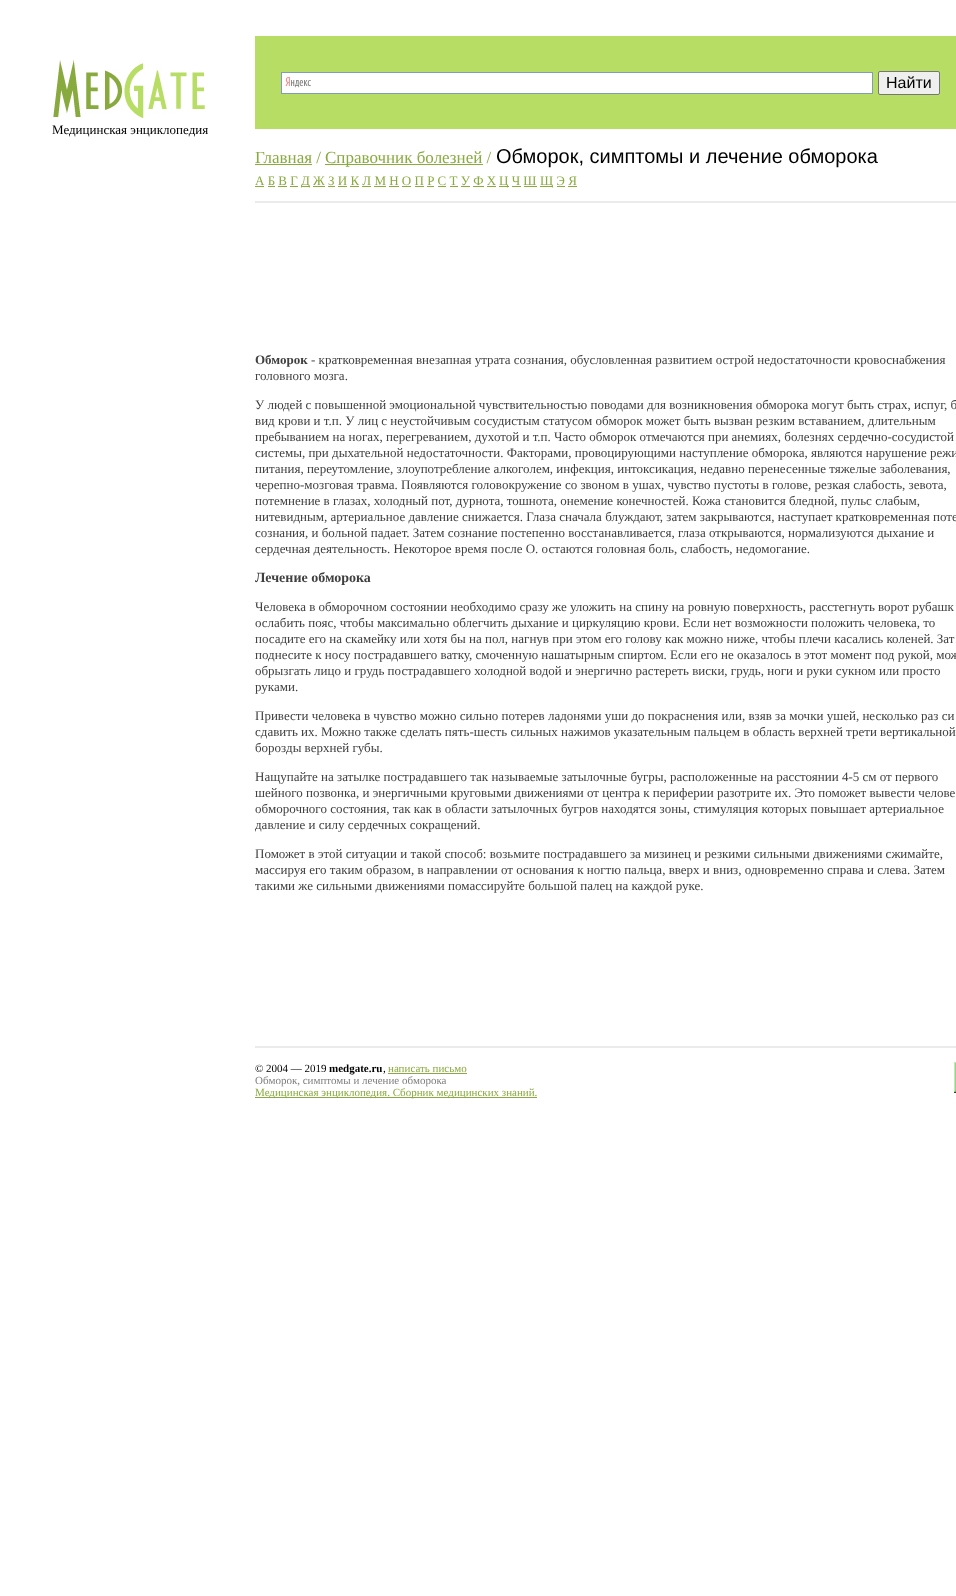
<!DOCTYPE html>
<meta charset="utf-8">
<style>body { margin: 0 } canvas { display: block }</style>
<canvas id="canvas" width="956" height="1596"></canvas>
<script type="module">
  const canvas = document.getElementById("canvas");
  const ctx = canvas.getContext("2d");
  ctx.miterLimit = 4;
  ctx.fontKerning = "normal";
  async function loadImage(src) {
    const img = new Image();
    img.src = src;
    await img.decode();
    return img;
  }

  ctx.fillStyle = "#ffffff";
  ctx.fillRect(0, 0, 956, 1596);
  ctx.drawImage(await loadImage("img1.png"), 53, 60, 152, 62);
  ctx.font = "13px Liberation Serif";
  ctx.fillStyle = "#000000";
  ctx.fillText("Медицинская энциклопедия", 52, 134);
  ctx.fillStyle = "#b7dd65";
  ctx.fillRect(255, 36, 701, 15);
  ctx.fillRect(255, 51, 701, 63);
  ctx.fillStyle = "#ffffff";
  ctx.fillRect(282, 73, 590, 20);
  ctx.drawImage(await loadImage("img2.png"), 285, 77, 26, 11);
  ctx.strokeStyle = "#7f9db9";
  ctx.strokeRect(281.5, 72.5, 591, 21);
  ctx.fillStyle = "#efefef";
  ctx.beginPath();
  ctx.roundRect(878.5, 71.5, 61, 23, 1.5);
  ctx.fill();
  ctx.strokeStyle = "#767676";
  ctx.stroke();
  ctx.font = "16px Liberation Sans";
  ctx.fillStyle = "#000000";
  ctx.fillText("Найти", 886, 88);
  ctx.fillStyle = "#b7dd65";
  ctx.fillRect(255, 114, 701, 15);
  ctx.font = "17px Liberation Serif";
  ctx.fillStyle = "#88aa3e";
  ctx.fillText("Главная /", 255, 163);
  ctx.fillRect(255, 164, 57, 1);
  ctx.fillRect(325, 164, 158, 1);
  ctx.fillText("Справочник болезней /", 325, 163);
  ctx.font = "20px Liberation Sans";
  ctx.fillStyle = "#000000";
  ctx.fillText("Обморок, симптомы и лечение обморока", 496, 163);
  ctx.font = "13px Liberation Serif";
  ctx.fillStyle = "#88aa3e";
  ctx.fillText("А Б В Г", 255, 185);
  ctx.fillRect(255, 186, 9, 1);
  ctx.fillRect(301, 186, 9, 1);
  ctx.fillText("Д Ж З И К Л М Н О П Р С Т У Ф Х", 301, 185);
  ctx.fillRect(499, 186, 10, 1);
  ctx.fillText("Ц Ч Ш", 499, 185);
  ctx.fillRect(540, 186, 13, 1);
  ctx.fillText("Щ Э Я", 540, 185);
  ctx.fillRect(268, 186, 7, 1);
  ctx.fillRect(278, 186, 9, 1);
  ctx.fillRect(290, 186, 8, 1);
  ctx.fillRect(313, 186, 12, 1);
  ctx.fillRect(328, 186, 7, 1);
  ctx.fillRect(338, 186, 9, 1);
  ctx.fillRect(350, 186, 9, 1);
  ctx.fillRect(362, 186, 9, 1);
  ctx.fillRect(374, 186, 12, 1);
  ctx.fillRect(389, 186, 10, 1);
  ctx.fillRect(402, 186, 9, 1);
  ctx.fillRect(415, 186, 9, 1);
  ctx.fillRect(427, 186, 7, 1);
  ctx.fillRect(438, 186, 8, 1);
  ctx.fillRect(450, 186, 8, 1);
  ctx.fillRect(461, 186, 9, 1);
  ctx.fillRect(473, 186, 11, 1);
  ctx.fillRect(487, 186, 9, 1);
  ctx.fillRect(512, 186, 9, 1);
  ctx.fillRect(524, 186, 13, 1);
  ctx.fillRect(557, 186, 8, 1);
  ctx.fillRect(568, 186, 9, 1);
  ctx.fillStyle = "#ebebeb";
  ctx.fillRect(255, 201, 701, 2);
  ctx.font = "bold 13px Liberation Serif";
  ctx.fillStyle = "#3f3f3f";
  ctx.fillText("Обморок", 255, 364);
  ctx.font = "13px Liberation Serif";
  ctx.fillText("- кратковременная внезапная утрата сознания, обусловленная развитием острой недостаточности кровоснабжения", 311, 364);
  ctx.fillText("головного мозга.", 255, 380);
  ctx.fillText("У людей с повышенной эмоциональной чувствительностью поводами для возникновения обморока могут быть страх, испуг, б", 255, 409);
  ctx.fillText("вид крови и т.п. У лиц с неустойчивым сосудистым статусом обморок может быть вызван резким вставанием, длительным", 255, 425);
  ctx.fillText("пребыванием на ногах, перегреванием, духотой и т.п. Часто обморок отмечаются при анемиях, болезнях сердечно-сосудистой", 255, 441);
  ctx.fillText("системы, при дыхательной недостаточности. Факторами, провоцирующими наступление обморока, являются нарушение режи", 255, 457);
  ctx.fillText("питания, переутомление, злоупотребление алкоголем, инфекция, интоксикация, недавно перенесенные тяжелые заболевания,", 255, 473);
  ctx.fillText("черепно-мозговая травма. Появляются головокружение со звоном в ушах, чувство пустоты в голове, резкая слабость, зевота,", 255, 489);
  ctx.fillText("потемнение в глазах, холодный пот, дурнота, тошнота, онемение конечностей. Кожа становится бледной, пульс слабым,", 255, 505);
  ctx.fillText("нитевидным, артериальное давление снижается. Глаза сначала блуждают, затем закрываются, наступает кратковременная поте", 255, 521);
  ctx.fillText("сознания, и больной падает. Затем сознание постепенно восстанавливается, глаза открываются, нормализуются дыхание и", 255, 537);
  ctx.fillText("сердечная деятельность. Некоторое время после О. остаются головная боль, слабость, недомогание.", 255, 553);
  ctx.font = "bold 14px Liberation Serif";
  ctx.fillText("Лечение обморока", 255, 582);
  ctx.font = "13px Liberation Serif";
  ctx.fillText("Человека в обморочном состоянии необходимо сразу же уложить на спину на ровную поверхность, расстегнуть ворот рубашк", 255, 611);
  ctx.fillText("ослабить пояс, чтобы максимально облегчить дыхание и циркуляцию крови. Если нет возможности положить человека, то", 255, 627);
  ctx.fillText("посадите его на скамейку или хотя бы на пол, нагнув при этом его голову как можно ниже, чтобы плечи касались коленей. Зат", 255, 643);
  ctx.fillText("поднесите к носу пострадавшего ватку, смоченную нашатырным спиртом. Если его не оказалось в этот момент под рукой, мож", 255, 659);
  ctx.fillText("обрызгать лицо и грудь пострадавшего холодной водой и энергично растереть виски, грудь, ноги и руки сукном или просто", 255, 675);
  ctx.fillText("руками.", 255, 691);
  ctx.fillText("Привести человека в чувство можно сильно потерев ладонями уши до покраснения или, взяв за мочки ушей, несколько раз си", 255, 720);
  ctx.fillText("сдавить их. Можно также сделать пять-шесть сильных нажимов указательным пальцем в область верхней трети вертикальной", 255, 736);
  ctx.fillText("борозды верхней губы.", 255, 752);
  ctx.fillText("Нащупайте на затылке пострадавшего так называемые затылочные бугры, расположенные на расстоянии 4-5 см от первого", 255, 781);
  ctx.fillText("шейного позвонка, и энергичными круговыми движениями от центра к периферии разотрите их. Это поможет вывести челове", 255, 797);
  ctx.fillText("обморочного состояния, так как в области затылочных бугров находятся зоны, стимуляция которых повышает артериальное", 255, 813);
  ctx.fillText("давление и силу сердечных сокращений.", 255, 829);
  ctx.fillText("Поможет в этой ситуации и такой способ: возьмите пострадавшего за мизинец и резкими сильными движениями сжимайте,", 255, 858);
  ctx.fillText("массируя его таким образом, в направлении от основания к ногтю пальца, вверх и вниз, одновременно справа и слева. Затем", 255, 874);
  ctx.fillText("такими же сильными движениями помассируйте большой палец на каждой руке.", 255, 890);
  ctx.fillStyle = "#ebebeb";
  ctx.fillRect(255, 1046, 701, 2);
  ctx.font = "11px Liberation Serif";
  ctx.fillStyle = "#000000";
  ctx.fillText("© 2004 — 2019", 255, 1072);
  ctx.font = "bold 11px Liberation Serif";
  ctx.fillText("medgate.ru", 329, 1072);
  ctx.font = "11px Liberation Serif";
  ctx.fillText(",", 383, 1072);
  ctx.fillStyle = "#88aa3e";
  ctx.fillText("написать письмо", 388, 1072);
  ctx.fillRect(388, 1073, 79, 1);
  ctx.fillStyle = "#7f7f7f";
  ctx.fillText("Обморок, симптомы и лечение обморока", 255, 1084);
  ctx.fillStyle = "#88aa3e";
  ctx.fillRect(255, 1097, 282, 1);
  ctx.fillText("Медицинская энциклопедия. Сборник медицинских знаний.", 255, 1096);
  ctx.drawImage(await loadImage("img3.png"), 954, 1062, 2, 31);
</script>
